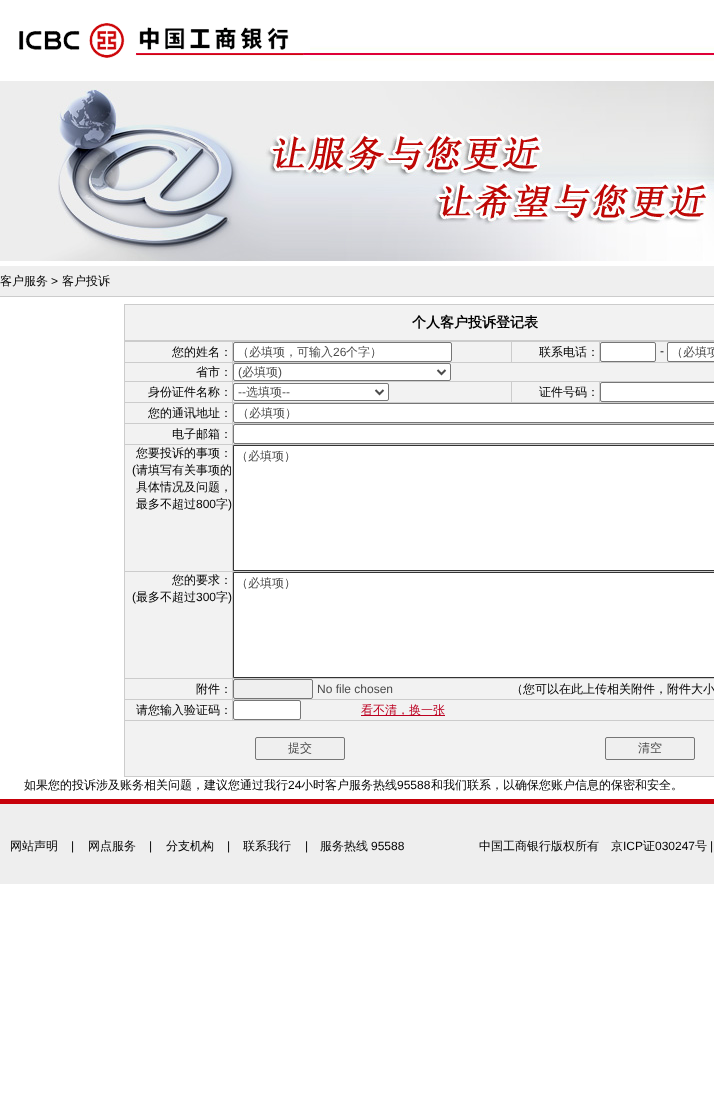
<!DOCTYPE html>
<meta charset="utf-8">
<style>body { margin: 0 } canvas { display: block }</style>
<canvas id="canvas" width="714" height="1115"></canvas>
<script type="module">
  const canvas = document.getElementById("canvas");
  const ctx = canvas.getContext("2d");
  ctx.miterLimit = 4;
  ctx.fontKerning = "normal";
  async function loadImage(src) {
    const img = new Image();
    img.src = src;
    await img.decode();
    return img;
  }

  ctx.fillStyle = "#ffffff";
  ctx.fillRect(0, 0, 714, 1115);
  ctx.drawImage(await loadImage("img1.png"), 19, 23, 695, 38);
  ctx.drawImage(await loadImage("img2.png"), 0, 81, 714, 180);
  ctx.fillStyle = "#efefef";
  ctx.fillRect(0, 266, 714, 30);
  ctx.font = "500 12px WenQuanYi Zen Hei";
  ctx.fillStyle = "#000000";
  ctx.fillText("客户服务", 0, 285);
  ctx.font = "12px Liberation Sans";
  ctx.fillText(">", 51, 285);
  ctx.font = "500 12px WenQuanYi Zen Hei";
  ctx.fillText("客户投诉", 62, 285);
  ctx.fillStyle = "#cccccc";
  ctx.fillRect(0, 296, 714, 1);
  ctx.fillStyle = "#f2f2f2";
  ctx.fillRect(125, 305, 589, 471);
  ctx.fillStyle = "#cccccc";
  ctx.fillRect(124, 304, 590, 1);
  ctx.fillRect(124, 304, 1, 473);
  ctx.fillRect(124, 340, 590, 1);
  ctx.font = "bold 14px WenQuanYi Zen Hei";
  ctx.fillStyle = "#000000";
  ctx.fillText("个人客户投诉登记表", 412, 327);
  ctx.fillStyle = "#cccccc";
  ctx.fillRect(125, 341, 589, 1);
  ctx.fillRect(125, 362, 589, 1);
  ctx.font = "500 12px WenQuanYi Zen Hei";
  ctx.fillStyle = "#000000";
  ctx.fillText("您的姓名：", 172, 356);
  ctx.fillStyle = "#cccccc";
  ctx.fillRect(511, 341, 1, 22);
  ctx.fillStyle = "#ffffff";
  ctx.beginPath();
  ctx.roundRect(233.5, 342.5, 218, 19, 1.5);
  ctx.fill();
  ctx.strokeStyle = "#767676";
  ctx.stroke();
  ctx.fillStyle = "#4c4c4c";
  ctx.fillText("（必填项，可输入", 237, 356);
  ctx.font = "12px Liberation Sans";
  ctx.fillText("26", 333, 356);
  ctx.font = "500 12px WenQuanYi Zen Hei";
  ctx.fillText("个字）", 346, 356);
  ctx.fillStyle = "#cccccc";
  ctx.fillRect(599, 341, 1, 22);
  ctx.fillStyle = "#000000";
  ctx.fillText("联系电话：", 539, 356);
  ctx.fillStyle = "#ffffff";
  ctx.beginPath();
  ctx.roundRect(600.5, 342.5, 55, 19, 1.5);
  ctx.fill();
  ctx.stroke();
  ctx.font = "12px Liberation Sans";
  ctx.fillStyle = "#000000";
  ctx.fillText("-", 660, 355);
  ctx.fillStyle = "#ffffff";
  ctx.beginPath();
  ctx.roundRect(667.5, 342.5, 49, 19, 1.5);
  ctx.fill();
  ctx.stroke();
  ctx.font = "500 12px WenQuanYi Zen Hei";
  ctx.fillStyle = "#4c4c4c";
  ctx.fillText("（必填项", 671, 356);
  ctx.fillStyle = "#cccccc";
  ctx.fillRect(125, 381, 589, 1);
  ctx.fillStyle = "#000000";
  ctx.fillText("省市：", 196, 376);
  ctx.fillStyle = "#ffffff";
  ctx.beginPath();
  ctx.roundRect(233.5, 363.5, 217, 17, 1.5);
  ctx.fill();
  ctx.stroke();
  ctx.beginPath();
  ctx.moveTo(437.5, 370);
  ctx.lineTo(441.5, 374);
  ctx.lineTo(445.5, 370);
  ctx.strokeStyle = "#4c4c4c";
  ctx.lineWidth = 2;
  ctx.stroke();
  ctx.font = "12px Liberation Sans";
  ctx.fillStyle = "#4c4c4c";
  ctx.fillText("(", 238, 376);
  ctx.font = "500 12px WenQuanYi Zen Hei";
  ctx.fillText("必填项", 242, 376);
  ctx.font = "12px Liberation Sans";
  ctx.fillText(")", 278, 376);
  ctx.fillStyle = "#cccccc";
  ctx.fillRect(125, 402, 589, 1);
  ctx.font = "500 12px WenQuanYi Zen Hei";
  ctx.fillStyle = "#000000";
  ctx.fillText("身份证件名称：", 148, 396);
  ctx.fillStyle = "#cccccc";
  ctx.fillRect(511, 381, 1, 22);
  ctx.fillStyle = "#ffffff";
  ctx.beginPath();
  ctx.roundRect(233.5, 383.5, 155, 17, 1.5);
  ctx.fill();
  ctx.strokeStyle = "#767676";
  ctx.lineWidth = 1;
  ctx.stroke();
  ctx.beginPath();
  ctx.moveTo(375.5, 390);
  ctx.lineTo(379.5, 394);
  ctx.lineTo(383.5, 390);
  ctx.strokeStyle = "#4c4c4c";
  ctx.lineWidth = 2;
  ctx.stroke();
  ctx.font = "12px Liberation Sans";
  ctx.fillStyle = "#4c4c4c";
  ctx.fillText("--", 238, 396);
  ctx.font = "500 12px WenQuanYi Zen Hei";
  ctx.fillText("选填项", 246, 396);
  ctx.font = "12px Liberation Sans";
  ctx.fillText("--", 282, 396);
  ctx.fillStyle = "#cccccc";
  ctx.fillRect(599, 381, 1, 22);
  ctx.font = "500 12px WenQuanYi Zen Hei";
  ctx.fillStyle = "#000000";
  ctx.fillText("证件号码：", 539, 396);
  ctx.fillStyle = "#ffffff";
  ctx.beginPath();
  ctx.roundRect(600.5, 382.5, 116, 19, 1.5);
  ctx.fill();
  ctx.strokeStyle = "#767676";
  ctx.lineWidth = 1;
  ctx.stroke();
  ctx.fillStyle = "#cccccc";
  ctx.fillRect(125, 423, 589, 1);
  ctx.fillStyle = "#000000";
  ctx.fillText("您的通讯地址：", 148, 417);
  ctx.fillStyle = "#ffffff";
  ctx.beginPath();
  ctx.roundRect(233.5, 403.5, 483, 19, 1.5);
  ctx.fill();
  ctx.stroke();
  ctx.fillStyle = "#4c4c4c";
  ctx.fillText("（必填项）", 237, 417);
  ctx.fillStyle = "#cccccc";
  ctx.fillRect(125, 444, 589, 1);
  ctx.fillStyle = "#000000";
  ctx.fillText("电子邮箱：", 172, 438);
  ctx.fillStyle = "#ffffff";
  ctx.beginPath();
  ctx.roundRect(233.5, 424.5, 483, 19, 1.5);
  ctx.fill();
  ctx.stroke();
  ctx.fillStyle = "#cccccc";
  ctx.fillRect(125, 571, 589, 1);
  ctx.fillStyle = "#000000";
  ctx.fillText("您要投诉的事项：", 136, 457);
  ctx.font = "12px Liberation Sans";
  ctx.fillText("(", 132, 474);
  ctx.font = "500 12px WenQuanYi Zen Hei";
  ctx.fillText("请填写有关事项的", 136, 474);
  ctx.fillText("具体情况及问题，", 136, 491);
  ctx.fillText("最多不超过", 136, 508);
  ctx.font = "12px Liberation Sans";
  ctx.fillText("800", 196, 508);
  ctx.font = "500 12px WenQuanYi Zen Hei";
  ctx.fillText("字", 216, 508);
  ctx.font = "12px Liberation Sans";
  ctx.fillText(")", 228, 508);
  ctx.fillStyle = "#ffffff";
  ctx.beginPath();
  ctx.rect(233.5, 445.5, 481, 125);
  ctx.fill();
  ctx.strokeStyle = "#333333";
  ctx.stroke();
  ctx.font = "500 12px WenQuanYi Zen Hei";
  ctx.fillStyle = "#4c4c4c";
  ctx.fillText("（必填项）", 236, 460);
  ctx.fillStyle = "#cccccc";
  ctx.fillRect(125, 678, 589, 1);
  ctx.fillStyle = "#000000";
  ctx.fillText("您的要求：", 172, 584);
  ctx.font = "12px Liberation Sans";
  ctx.fillText("(", 132, 601);
  ctx.font = "500 12px WenQuanYi Zen Hei";
  ctx.fillText("最多不超过", 136, 601);
  ctx.font = "12px Liberation Sans";
  ctx.fillText("300", 196, 601);
  ctx.font = "500 12px WenQuanYi Zen Hei";
  ctx.fillText("字", 216, 601);
  ctx.font = "12px Liberation Sans";
  ctx.fillText(")", 228, 601);
  ctx.fillStyle = "#ffffff";
  ctx.beginPath();
  ctx.rect(233.5, 572.5, 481, 105);
  ctx.fill();
  ctx.stroke();
  ctx.font = "500 12px WenQuanYi Zen Hei";
  ctx.fillStyle = "#4c4c4c";
  ctx.fillText("（必填项）", 236, 587);
  ctx.fillStyle = "#cccccc";
  ctx.fillRect(125, 699, 589, 1);
  ctx.fillStyle = "#000000";
  ctx.fillText("附件：", 196, 693);
  ctx.fillStyle = "#efefef";
  ctx.beginPath();
  ctx.roundRect(233.5, 679.5, 79, 19, 1.5);
  ctx.fill();
  ctx.strokeStyle = "#767676";
  ctx.stroke();
  ctx.font = "12px Liberation Sans";
  ctx.fillStyle = "#4c4c4c";
  ctx.fillText("No file chosen", 317, 693);
  ctx.font = "500 12px WenQuanYi Zen Hei";
  ctx.fillStyle = "#000000";
  ctx.fillText("（您可以在此上传相关附件，附件大小", 511, 693);
  ctx.fillStyle = "#cccccc";
  ctx.fillRect(125, 720, 589, 1);
  ctx.fillRect(232, 341, 1, 380);
  ctx.fillStyle = "#000000";
  ctx.fillText("请您输入验证码：", 136, 714);
  ctx.fillStyle = "#ffffff";
  ctx.beginPath();
  ctx.roundRect(233.5, 700.5, 67, 19, 1.5);
  ctx.fill();
  ctx.stroke();
  ctx.fillStyle = "#bc0021";
  ctx.fillRect(361, 715, 84, 1);
  ctx.fillText("看不清，换一张", 361, 714);
  ctx.fillStyle = "#cccccc";
  ctx.fillRect(124, 776, 590, 1);
  ctx.fillStyle = "#efefef";
  ctx.beginPath();
  ctx.roundRect(255.5, 737.5, 89, 22, 1.5);
  ctx.fill();
  ctx.stroke();
  ctx.fillStyle = "#4c4c4c";
  ctx.fillText("提交", 288, 752);
  ctx.fillStyle = "#efefef";
  ctx.beginPath();
  ctx.roundRect(605.5, 737.5, 89, 22, 1.5);
  ctx.fill();
  ctx.stroke();
  ctx.fillStyle = "#4c4c4c";
  ctx.fillText("清空", 638, 752);
  ctx.fillStyle = "#000000";
  ctx.fillText("如果您的投诉涉及账务相关问题，建议您通过我行", 24, 789);
  ctx.font = "12px Liberation Sans";
  ctx.fillText("24", 288, 789);
  ctx.font = "500 12px WenQuanYi Zen Hei";
  ctx.fillText("小时客户服务热线", 301, 789);
  ctx.font = "12px Liberation Sans";
  ctx.fillText("95588", 397, 789);
  ctx.font = "500 12px WenQuanYi Zen Hei";
  ctx.fillText("和我们联系，以确保您账户信息的保密和安全。", 431, 789);
  ctx.fillStyle = "#eeeeee";
  ctx.fillRect(0, 804, 714, 80);
  ctx.fillStyle = "#c7000a";
  ctx.fillRect(0, 799, 714, 5);
  ctx.fillStyle = "#000000";
  ctx.fillText("网站声明", 10, 850);
  ctx.font = "12px Liberation Sans";
  ctx.fillText("|", 71, 850);
  ctx.font = "500 12px WenQuanYi Zen Hei";
  ctx.fillText("网点服务", 88, 850);
  ctx.font = "12px Liberation Sans";
  ctx.fillText("|", 149, 850);
  ctx.font = "500 12px WenQuanYi Zen Hei";
  ctx.fillText("分支机构", 166, 850);
  ctx.font = "12px Liberation Sans";
  ctx.fillText("|", 227, 850);
  ctx.font = "500 12px WenQuanYi Zen Hei";
  ctx.fillText("联系我行", 243, 850);
  ctx.font = "12px Liberation Sans";
  ctx.fillText("|", 305, 850);
  ctx.font = "500 12px WenQuanYi Zen Hei";
  ctx.fillText("服务热线", 320, 850);
  ctx.font = "12px Liberation Sans";
  ctx.fillText("95588", 371, 850);
  ctx.font = "500 12px WenQuanYi Zen Hei";
  ctx.fillText("中国工商银行版权所有", 479, 850);
  ctx.fillText("京", 611, 850);
  ctx.font = "12px Liberation Sans";
  ctx.fillText("ICP", 623, 850);
  ctx.font = "500 12px WenQuanYi Zen Hei";
  ctx.fillText("证", 643, 850);
  ctx.font = "12px Liberation Sans";
  ctx.fillText("030247", 655, 850);
  ctx.font = "500 12px WenQuanYi Zen Hei";
  ctx.fillText("号", 695, 850);
  ctx.font = "12px Liberation Sans";
  ctx.fillText("|", 710, 850);
</script>
